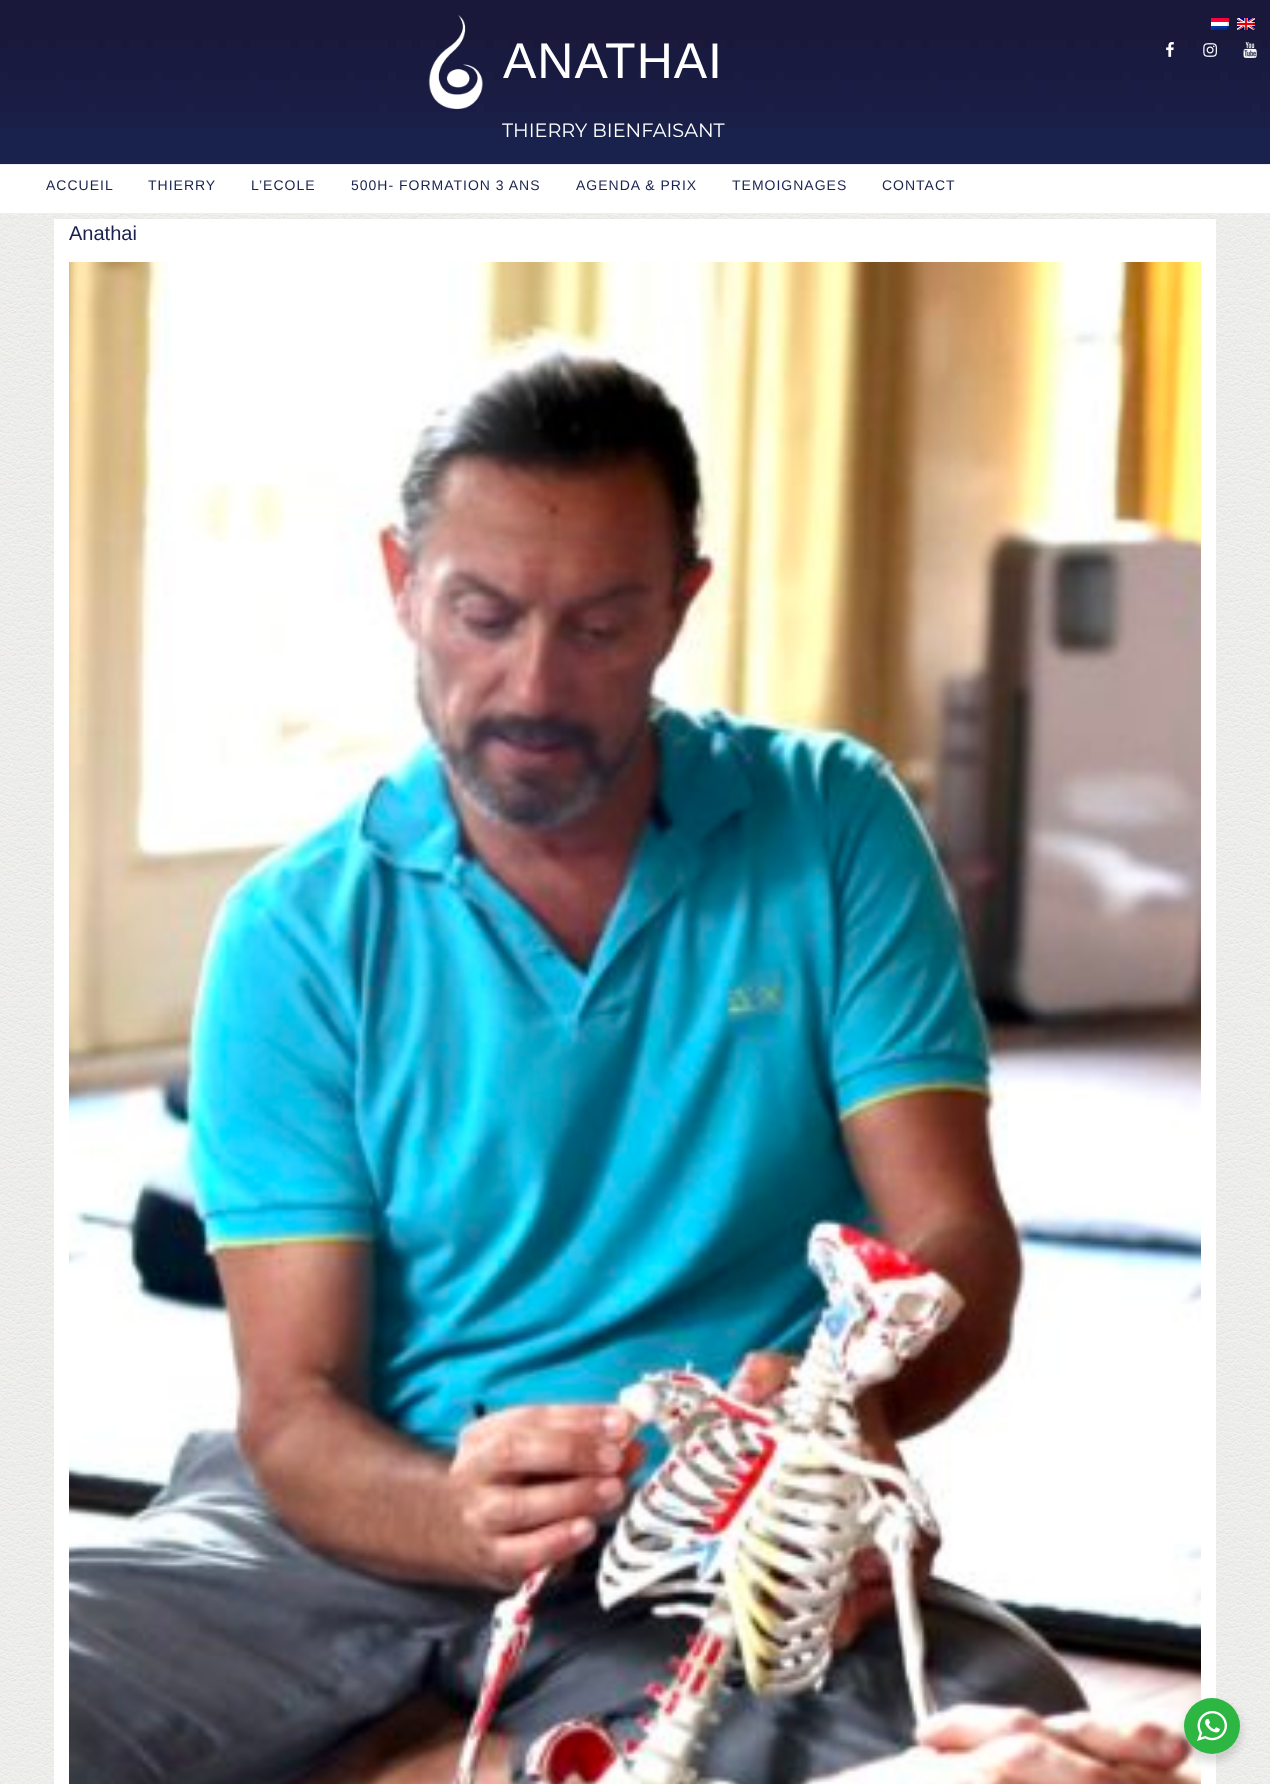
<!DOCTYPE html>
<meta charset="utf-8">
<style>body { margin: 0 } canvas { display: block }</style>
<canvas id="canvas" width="1270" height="1784"></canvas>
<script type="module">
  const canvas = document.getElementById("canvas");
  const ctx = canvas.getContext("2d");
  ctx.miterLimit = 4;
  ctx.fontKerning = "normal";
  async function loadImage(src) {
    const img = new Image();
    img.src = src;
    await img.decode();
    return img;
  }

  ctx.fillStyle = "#ffffff";
  ctx.fillRect(0, 0, 1270, 1784);
  ctx.drawImage(await loadImage("img1.png"), 0, 214, 1270, 1570);
  ctx.fillStyle = "#19224c";
  ctx.fillRect(0, 128, 1270, 36);
  ctx.drawImage(await loadImage("img2.png"), 0, 0, 1270, 128);
  ctx.drawImage(await loadImage("img3.png"), 1211, 18, 18, 12);
  ctx.drawImage(await loadImage("img4.png"), 1237, 18, 18, 12);
  ctx.drawImage(await loadImage("img5.png"), 428, 15, 55, 95);
  ctx.letterSpacing = "1px";
  ctx.font = "50px Liberation Sans";
  ctx.fillStyle = "#ffffff";
  ctx.fillText("ANATHAI", 503, 78);
  ctx.letterSpacing = "0px";
  ctx.font = "19.25px Montserrat";
  ctx.fillText("THIERRY BIENFAISANT", 502, 137);
  ctx.drawImage(await loadImage("img6.png"), 1166, 42, 8, 15);
  ctx.drawImage(await loadImage("img7.png"), 1203, 43, 14, 14);
  ctx.drawImage(await loadImage("img8.png"), 1243, 42, 14, 16);
  ctx.fillStyle = "#eeeeee";
  ctx.fillRect(0, 164, 1270, 1);
  ctx.fillRect(0, 213, 1270, 1);
  ctx.letterSpacing = "1px";
  ctx.font = "14px Liberation Sans";
  ctx.fillStyle = "#19224e";
  ctx.fillText("ACCUEIL", 46, 190);
  ctx.fillText("THIERRY", 148, 190);
  ctx.fillText("L’ECOLE", 251, 190);
  ctx.fillText("500H- FORMATION 3 ANS", 351, 190);
  ctx.fillText("AGENDA & PRIX", 576, 190);
  ctx.fillText("TEMOIGNAGES", 732, 190);
  ctx.fillText("CONTACT", 882, 190);
  ctx.fillStyle = "#ffffff";
  ctx.fillRect(54, 219, 1162, 1565);
  ctx.letterSpacing = "0px";
  ctx.font = "20px Liberation Sans";
  ctx.fillStyle = "#19224e";
  ctx.fillText("Anathai", 69, 240);
  ctx.drawImage(await loadImage("img9.png"), 69, 262, 1132, 1522);
  ctx.fillStyle = "rgba(0, 0, 0, 0.14)";
  ctx.filter = "blur(4px)";
  ctx.beginPath();
  ctx.roundRect(1182, 1702, 60, 60, 30);
  ctx.fill();
  ctx.filter = "none";
  ctx.fillStyle = "#2db742";
  ctx.beginPath();
  ctx.arc(1212, 1726, 28, 0, Math.PI * 2);
  ctx.fill();
  ctx.drawImage(await loadImage("img10.png"), 1197, 1711, 30, 30);
</script>
